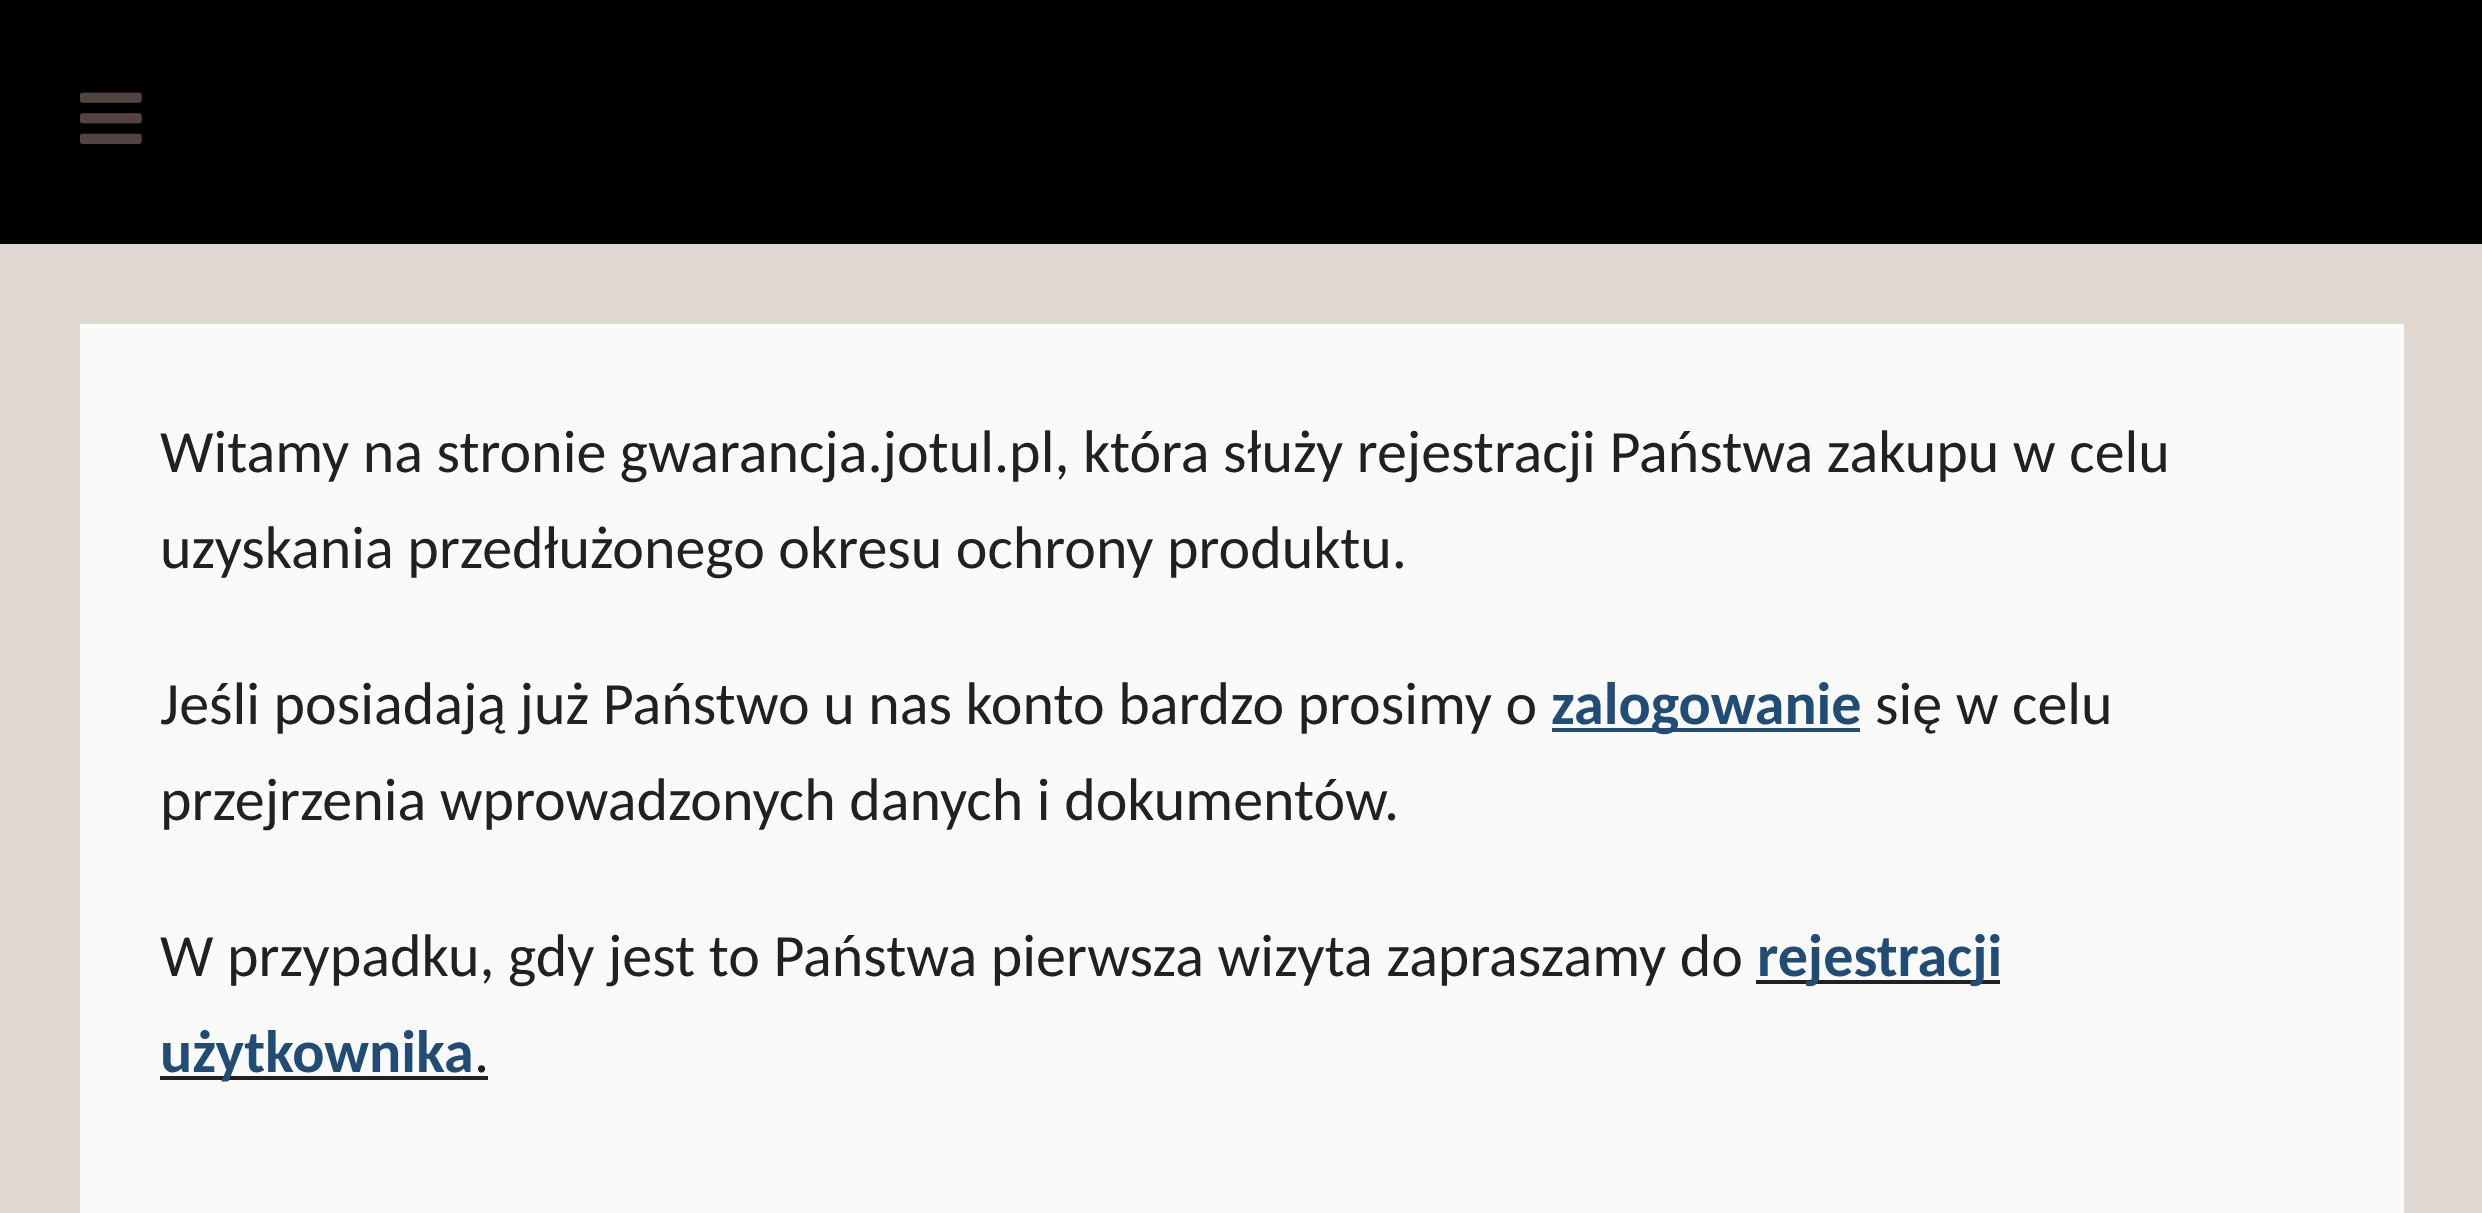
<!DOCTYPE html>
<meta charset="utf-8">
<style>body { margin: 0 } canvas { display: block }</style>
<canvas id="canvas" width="2482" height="1213"></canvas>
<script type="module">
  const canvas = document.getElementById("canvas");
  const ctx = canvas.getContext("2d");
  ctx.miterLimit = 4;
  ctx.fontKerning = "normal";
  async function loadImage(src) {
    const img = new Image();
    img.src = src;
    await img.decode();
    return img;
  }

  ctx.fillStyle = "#dfd9d2";
  ctx.fillRect(0, 0, 2482, 1213);
  ctx.fillStyle = "#000000";
  ctx.fillRect(0, 0, 2482, 240);
  ctx.fillStyle = "#070605";
  ctx.fillRect(0, 240, 2482, 4);
  ctx.drawImage(await loadImage("img1.png"), 80, 92, 62, 52);
  ctx.fillStyle = "#fafaf9";
  ctx.fillRect(80, 324, 2324, 889);
  ctx.font = "60px Carlito";
  ctx.fillStyle = "#212120";
  ctx.fillText("Witamy na stronie gwarancja.jotul.pl, która służy rejestracji Państwa zakupu w celu", 160, 472);
  ctx.fillText("uzyskania przedłużonego okresu ochrony produktu.", 160, 568);
  ctx.fillText("Jeśli posiadają już Państwo u nas konto bardzo prosimy o", 160, 724);
  ctx.fillStyle = "#214c76";
  ctx.fillRect(1552, 728, 308, 4);
  ctx.font = "bold 60px Carlito";
  ctx.fillText("zalogowanie", 1551, 724);
  ctx.font = "60px Carlito";
  ctx.fillStyle = "#212120";
  ctx.fillText("się w celu", 1875, 724);
  ctx.fillText("przejrzenia wprowadzonych danych i dokumentów.", 160, 820);
  ctx.fillText("W przypadku, gdy jest to Państwa pierwsza wizyta zapraszamy do", 160, 976);
  ctx.fillRect(1756, 980, 244, 4);
  ctx.font = "bold 60px Carlito";
  ctx.fillStyle = "#214c76";
  ctx.fillText("rejestracji", 1757, 976);
  ctx.fillStyle = "#212120";
  ctx.fillRect(160, 1076, 328, 4);
  ctx.fillStyle = "#214c76";
  ctx.fillText("użytkownika", 160, 1072);
  ctx.font = "60px Carlito";
  ctx.fillStyle = "#212120";
  ctx.fillText(".", 474, 1072);
</script>
